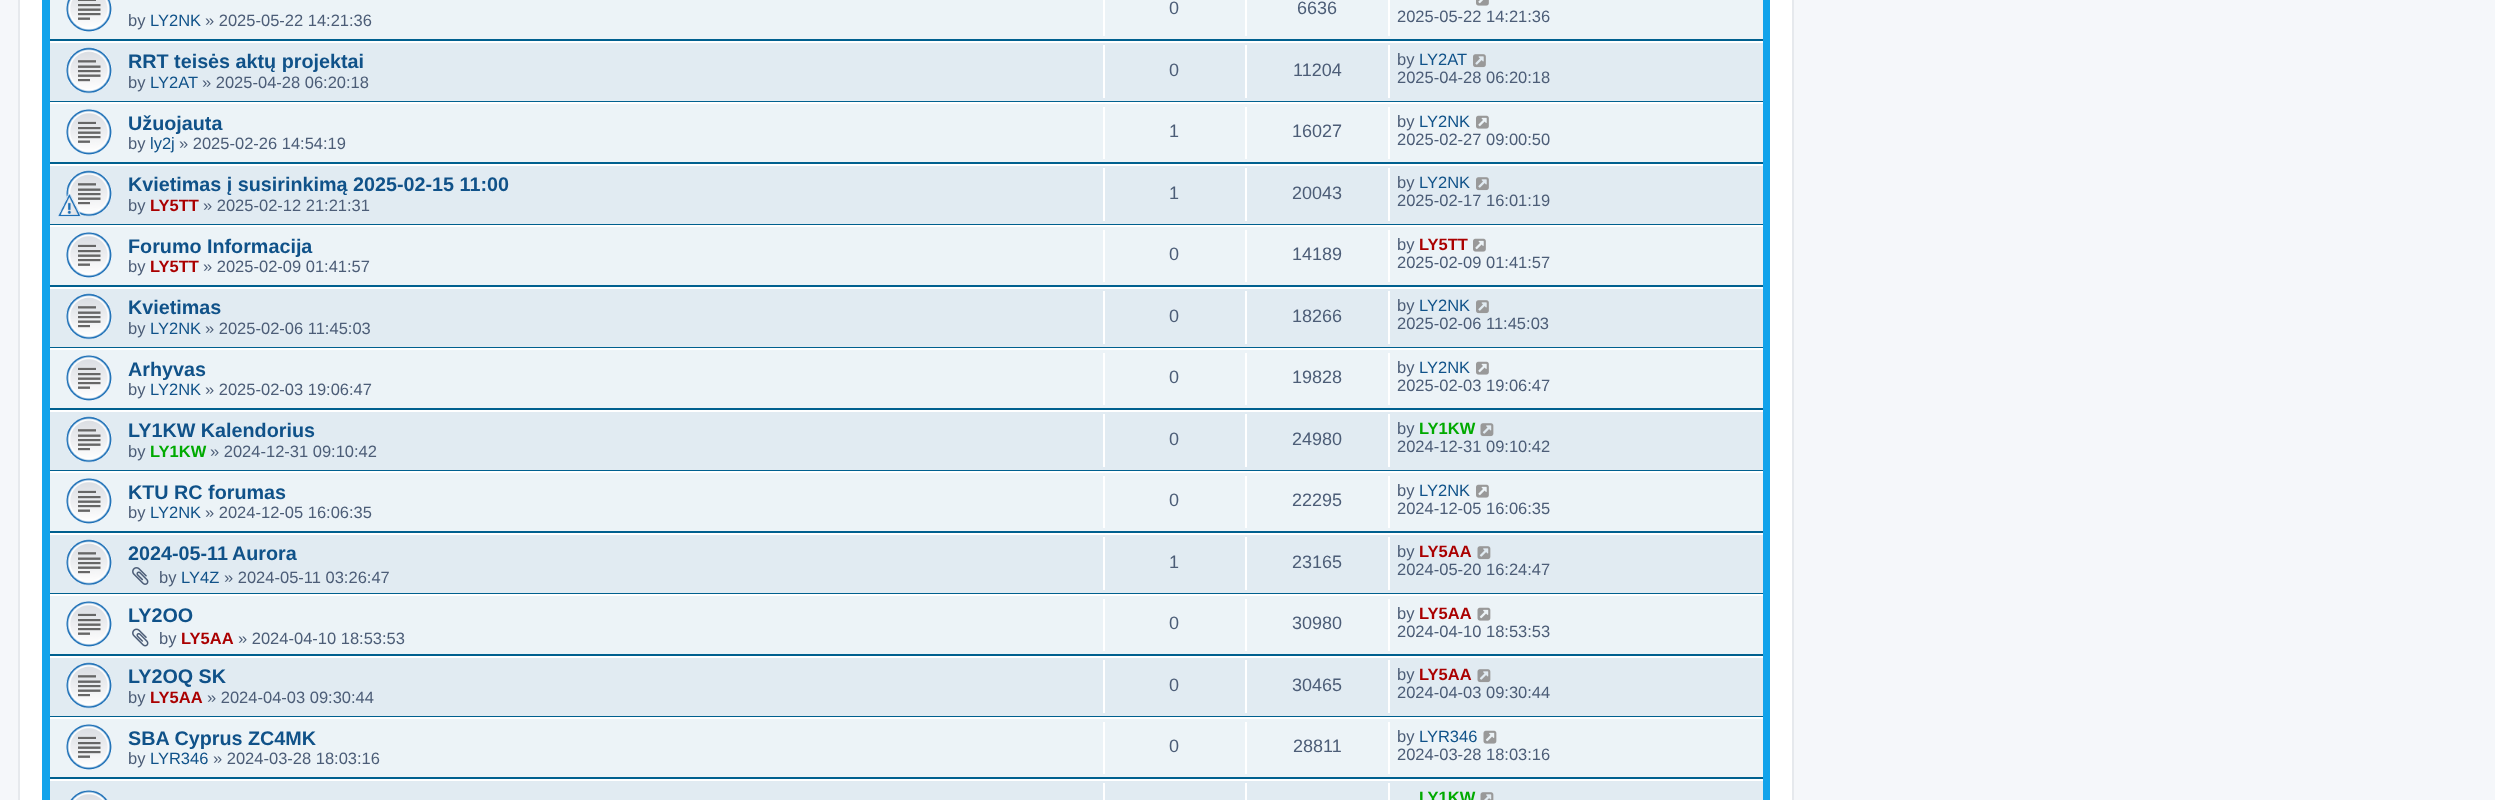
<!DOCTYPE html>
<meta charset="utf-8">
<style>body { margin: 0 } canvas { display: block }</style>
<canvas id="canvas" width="2495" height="800"></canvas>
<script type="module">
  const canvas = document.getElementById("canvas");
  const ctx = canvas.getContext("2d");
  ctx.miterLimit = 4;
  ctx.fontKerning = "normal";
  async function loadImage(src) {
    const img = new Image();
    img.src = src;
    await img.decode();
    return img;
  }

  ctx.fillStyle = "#f5f7fa";
  ctx.fillRect(0, 0, 2495, 800);
  ctx.fillStyle = "#ffffff";
  ctx.beginPath();
  ctx.rect(19, -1, 1774, 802);
  ctx.fill();
  ctx.strokeStyle = "#e6e9ed";
  ctx.lineWidth = 2;
  ctx.stroke();
  ctx.fillStyle = "#12a3eb";
  ctx.fillRect(42, 0, 1728, 800);
  ctx.fillStyle = "#ecf3f7";
  ctx.fillRect(50, 0, 1713, 39);
  ctx.fillStyle = "#00608f";
  ctx.fillRect(50, 39, 1713, 2);
  ctx.drawImage(await loadImage("img1.png"), 66, 0, 46, 32);
  ctx.fillStyle = "#ffffff";
  ctx.fillRect(1103, 0, 2, 36);
  ctx.font = "18px Liberation Sans";
  ctx.fillStyle = "#4c5d77";
  ctx.fillText("0", 1169, 14);
  ctx.fillStyle = "#ffffff";
  ctx.fillRect(1245, 0, 2, 36);
  ctx.fillStyle = "#4c5d77";
  ctx.fillText("6636", 1297, 14);
  ctx.font = "16.5px Liberation Sans";
  ctx.fillText("by", 128, 26);
  ctx.fillStyle = "#105289";
  ctx.fillText("LY2NK", 150, 26);
  ctx.fillStyle = "#4c5d77";
  ctx.fillText("» 2025-05-22 14:21:36", 205, 26);
  ctx.fillStyle = "#ffffff";
  ctx.fillRect(1388, 0, 2, 36);
  ctx.drawImage(await loadImage("img2.png"), 1476, 0, 13, 6);
  ctx.fillStyle = "#4c5d77";
  ctx.fillText("2025-05-22 14:21:36", 1397, 22);
  ctx.fillStyle = "#e1ebf2";
  ctx.fillRect(50, 43, 1713, 58);
  ctx.fillStyle = "#ffffff";
  ctx.fillRect(50, 41, 1713, 2);
  ctx.fillStyle = "#00608f";
  ctx.fillRect(50, 101, 1713, 1);
  ctx.drawImage(await loadImage("img3.png"), 66, 47, 46, 47);
  ctx.font = "bold 19.75px Liberation Sans";
  ctx.fillStyle = "#105289";
  ctx.fillText("RRT teisės aktų projektai", 128, 68);
  ctx.font = "16.5px Liberation Sans";
  ctx.fillStyle = "#4c5d77";
  ctx.fillText("by", 128, 88);
  ctx.fillStyle = "#105289";
  ctx.fillText("LY2AT", 150, 88);
  ctx.fillStyle = "#4c5d77";
  ctx.fillText("» 2025-04-28 06:20:18", 202, 88);
  ctx.fillStyle = "#ffffff";
  ctx.fillRect(1103, 45, 2, 53);
  ctx.font = "18px Liberation Sans";
  ctx.fillStyle = "#4c5d77";
  ctx.fillText("0", 1169, 76);
  ctx.fillStyle = "#ffffff";
  ctx.fillRect(1245, 45, 2, 53);
  ctx.fillStyle = "#4c5d77";
  ctx.fillText("11204", 1293, 76);
  ctx.fillStyle = "#ffffff";
  ctx.fillRect(1388, 45, 2, 53);
  ctx.font = "16.5px Liberation Sans";
  ctx.fillStyle = "#4c5d77";
  ctx.fillText("by", 1397, 65);
  ctx.fillStyle = "#105289";
  ctx.fillText("LY2AT", 1419, 65);
  ctx.drawImage(await loadImage("img4.png"), 1473, 54, 13, 14);
  ctx.fillStyle = "#4c5d77";
  ctx.fillText("2025-04-28 06:20:18", 1397, 83);
  ctx.fillStyle = "#ecf3f7";
  ctx.fillRect(50, 104, 1713, 58);
  ctx.fillStyle = "#ffffff";
  ctx.fillRect(50, 102, 1713, 2);
  ctx.fillStyle = "#00608f";
  ctx.fillRect(50, 162, 1713, 2);
  ctx.drawImage(await loadImage("img5.png"), 66, 109, 46, 46);
  ctx.font = "bold 19.75px Liberation Sans";
  ctx.fillStyle = "#105289";
  ctx.fillText("Užuojauta", 128, 130);
  ctx.font = "16.5px Liberation Sans";
  ctx.fillStyle = "#4c5d77";
  ctx.fillText("by", 128, 149);
  ctx.fillStyle = "#105289";
  ctx.fillText("ly2j", 150, 149);
  ctx.fillStyle = "#4c5d77";
  ctx.fillText("» 2025-02-26 14:54:19", 179, 149);
  ctx.fillStyle = "#ffffff";
  ctx.fillRect(1103, 107, 2, 52);
  ctx.font = "18px Liberation Sans";
  ctx.fillStyle = "#4c5d77";
  ctx.fillText("1", 1169, 137);
  ctx.fillStyle = "#ffffff";
  ctx.fillRect(1245, 107, 2, 52);
  ctx.fillStyle = "#4c5d77";
  ctx.fillText("16027", 1292, 137);
  ctx.fillStyle = "#ffffff";
  ctx.fillRect(1388, 107, 2, 52);
  ctx.font = "16.5px Liberation Sans";
  ctx.fillStyle = "#4c5d77";
  ctx.fillText("by", 1397, 127);
  ctx.fillStyle = "#105289";
  ctx.fillText("LY2NK", 1419, 127);
  ctx.drawImage(await loadImage("img6.png"), 1476, 115, 13, 14);
  ctx.fillStyle = "#4c5d77";
  ctx.fillText("2025-02-27 09:00:50", 1397, 145);
  ctx.fillStyle = "#e1ebf2";
  ctx.fillRect(50, 166, 1713, 58);
  ctx.fillStyle = "#ffffff";
  ctx.fillRect(50, 164, 1713, 2);
  ctx.fillStyle = "#00608f";
  ctx.fillRect(50, 224, 1713, 1);
  ctx.drawImage(await loadImage("img3.png"), 66, 170, 46, 47);
  ctx.drawImage(await loadImage("img7.png"), 58, 194, 23, 23);
  ctx.font = "bold 19.75px Liberation Sans";
  ctx.fillStyle = "#105289";
  ctx.fillText("Kvietimas į susirinkimą 2025-02-15 11:00", 128, 191);
  ctx.font = "16.5px Liberation Sans";
  ctx.fillStyle = "#4c5d77";
  ctx.fillText("by", 128, 211);
  ctx.font = "bold 16.5px Liberation Sans";
  ctx.fillStyle = "#aa0000";
  ctx.fillText("LY5TT", 150, 211);
  ctx.font = "16.5px Liberation Sans";
  ctx.fillStyle = "#4c5d77";
  ctx.fillText("» 2025-02-12 21:21:31", 203, 211);
  ctx.fillStyle = "#ffffff";
  ctx.fillRect(1103, 168, 2, 53);
  ctx.font = "18px Liberation Sans";
  ctx.fillStyle = "#4c5d77";
  ctx.fillText("1", 1169, 199);
  ctx.fillStyle = "#ffffff";
  ctx.fillRect(1245, 168, 2, 53);
  ctx.fillStyle = "#4c5d77";
  ctx.fillText("20043", 1292, 199);
  ctx.fillStyle = "#ffffff";
  ctx.fillRect(1388, 168, 2, 53);
  ctx.font = "16.5px Liberation Sans";
  ctx.fillStyle = "#4c5d77";
  ctx.fillText("by", 1397, 188);
  ctx.fillStyle = "#105289";
  ctx.fillText("LY2NK", 1419, 188);
  ctx.drawImage(await loadImage("img4.png"), 1476, 177, 13, 14);
  ctx.fillStyle = "#4c5d77";
  ctx.fillText("2025-02-17 16:01:19", 1397, 206);
  ctx.fillStyle = "#ecf3f7";
  ctx.fillRect(50, 227, 1713, 58);
  ctx.fillStyle = "#ffffff";
  ctx.fillRect(50, 225, 1713, 2);
  ctx.fillStyle = "#00608f";
  ctx.fillRect(50, 285, 1713, 2);
  ctx.drawImage(await loadImage("img5.png"), 66, 232, 46, 46);
  ctx.font = "bold 19.75px Liberation Sans";
  ctx.fillStyle = "#105289";
  ctx.fillText("Forumo Informacija", 128, 253);
  ctx.font = "16.5px Liberation Sans";
  ctx.fillStyle = "#4c5d77";
  ctx.fillText("by", 128, 272);
  ctx.font = "bold 16.5px Liberation Sans";
  ctx.fillStyle = "#aa0000";
  ctx.fillText("LY5TT", 150, 272);
  ctx.font = "16.5px Liberation Sans";
  ctx.fillStyle = "#4c5d77";
  ctx.fillText("» 2025-02-09 01:41:57", 203, 272);
  ctx.fillStyle = "#ffffff";
  ctx.fillRect(1103, 230, 2, 52);
  ctx.font = "18px Liberation Sans";
  ctx.fillStyle = "#4c5d77";
  ctx.fillText("0", 1169, 260);
  ctx.fillStyle = "#ffffff";
  ctx.fillRect(1245, 230, 2, 52);
  ctx.fillStyle = "#4c5d77";
  ctx.fillText("14189", 1292, 260);
  ctx.fillStyle = "#ffffff";
  ctx.fillRect(1388, 230, 2, 52);
  ctx.font = "16.5px Liberation Sans";
  ctx.fillStyle = "#4c5d77";
  ctx.fillText("by", 1397, 250);
  ctx.font = "bold 16.5px Liberation Sans";
  ctx.fillStyle = "#aa0000";
  ctx.fillText("LY5TT", 1419, 250);
  ctx.drawImage(await loadImage("img6.png"), 1473, 238, 13, 14);
  ctx.font = "16.5px Liberation Sans";
  ctx.fillStyle = "#4c5d77";
  ctx.fillText("2025-02-09 01:41:57", 1397, 268);
  ctx.fillStyle = "#e1ebf2";
  ctx.fillRect(50, 289, 1713, 58);
  ctx.fillStyle = "#ffffff";
  ctx.fillRect(50, 287, 1713, 2);
  ctx.fillStyle = "#00608f";
  ctx.fillRect(50, 347, 1713, 1);
  ctx.drawImage(await loadImage("img3.png"), 66, 293, 46, 47);
  ctx.font = "bold 19.75px Liberation Sans";
  ctx.fillStyle = "#105289";
  ctx.fillText("Kvietimas", 128, 314);
  ctx.font = "16.5px Liberation Sans";
  ctx.fillStyle = "#4c5d77";
  ctx.fillText("by", 128, 334);
  ctx.fillStyle = "#105289";
  ctx.fillText("LY2NK", 150, 334);
  ctx.fillStyle = "#4c5d77";
  ctx.fillText("» 2025-02-06 11:45:03", 205, 334);
  ctx.fillStyle = "#ffffff";
  ctx.fillRect(1103, 291, 2, 53);
  ctx.font = "18px Liberation Sans";
  ctx.fillStyle = "#4c5d77";
  ctx.fillText("0", 1169, 322);
  ctx.fillStyle = "#ffffff";
  ctx.fillRect(1245, 291, 2, 53);
  ctx.fillStyle = "#4c5d77";
  ctx.fillText("18266", 1292, 322);
  ctx.fillStyle = "#ffffff";
  ctx.fillRect(1388, 291, 2, 53);
  ctx.font = "16.5px Liberation Sans";
  ctx.fillStyle = "#4c5d77";
  ctx.fillText("by", 1397, 311);
  ctx.fillStyle = "#105289";
  ctx.fillText("LY2NK", 1419, 311);
  ctx.drawImage(await loadImage("img4.png"), 1476, 300, 13, 14);
  ctx.fillStyle = "#4c5d77";
  ctx.fillText("2025-02-06 11:45:03", 1397, 329);
  ctx.fillStyle = "#ecf3f7";
  ctx.fillRect(50, 350, 1713, 58);
  ctx.fillStyle = "#ffffff";
  ctx.fillRect(50, 348, 1713, 2);
  ctx.fillStyle = "#00608f";
  ctx.fillRect(50, 408, 1713, 2);
  ctx.drawImage(await loadImage("img5.png"), 66, 355, 46, 46);
  ctx.font = "bold 19.75px Liberation Sans";
  ctx.fillStyle = "#105289";
  ctx.fillText("Arhyvas", 128, 376);
  ctx.font = "16.5px Liberation Sans";
  ctx.fillStyle = "#4c5d77";
  ctx.fillText("by", 128, 395);
  ctx.fillStyle = "#105289";
  ctx.fillText("LY2NK", 150, 395);
  ctx.fillStyle = "#4c5d77";
  ctx.fillText("» 2025-02-03 19:06:47", 205, 395);
  ctx.fillStyle = "#ffffff";
  ctx.fillRect(1103, 353, 2, 52);
  ctx.font = "18px Liberation Sans";
  ctx.fillStyle = "#4c5d77";
  ctx.fillText("0", 1169, 383);
  ctx.fillStyle = "#ffffff";
  ctx.fillRect(1245, 353, 2, 52);
  ctx.fillStyle = "#4c5d77";
  ctx.fillText("19828", 1292, 383);
  ctx.fillStyle = "#ffffff";
  ctx.fillRect(1388, 353, 2, 52);
  ctx.font = "16.5px Liberation Sans";
  ctx.fillStyle = "#4c5d77";
  ctx.fillText("by", 1397, 373);
  ctx.fillStyle = "#105289";
  ctx.fillText("LY2NK", 1419, 373);
  ctx.drawImage(await loadImage("img6.png"), 1476, 361, 13, 14);
  ctx.fillStyle = "#4c5d77";
  ctx.fillText("2025-02-03 19:06:47", 1397, 391);
  ctx.fillStyle = "#e1ebf2";
  ctx.fillRect(50, 412, 1713, 58);
  ctx.fillStyle = "#ffffff";
  ctx.fillRect(50, 410, 1713, 2);
  ctx.fillStyle = "#00608f";
  ctx.fillRect(50, 470, 1713, 1);
  ctx.drawImage(await loadImage("img3.png"), 66, 416, 46, 47);
  ctx.font = "bold 19.75px Liberation Sans";
  ctx.fillStyle = "#105289";
  ctx.fillText("LY1KW Kalendorius", 128, 437);
  ctx.font = "16.5px Liberation Sans";
  ctx.fillStyle = "#4c5d77";
  ctx.fillText("by", 128, 457);
  ctx.font = "bold 16.5px Liberation Sans";
  ctx.fillStyle = "#00aa00";
  ctx.fillText("LY1KW", 150, 457);
  ctx.font = "16.5px Liberation Sans";
  ctx.fillStyle = "#4c5d77";
  ctx.fillText("» 2024-12-31 09:10:42", 210, 457);
  ctx.fillStyle = "#ffffff";
  ctx.fillRect(1103, 414, 2, 53);
  ctx.font = "18px Liberation Sans";
  ctx.fillStyle = "#4c5d77";
  ctx.fillText("0", 1169, 445);
  ctx.fillStyle = "#ffffff";
  ctx.fillRect(1245, 414, 2, 53);
  ctx.fillStyle = "#4c5d77";
  ctx.fillText("24980", 1292, 445);
  ctx.fillStyle = "#ffffff";
  ctx.fillRect(1388, 414, 2, 53);
  ctx.font = "16.5px Liberation Sans";
  ctx.fillStyle = "#4c5d77";
  ctx.fillText("by", 1397, 434);
  ctx.font = "bold 16.5px Liberation Sans";
  ctx.fillStyle = "#00aa00";
  ctx.fillText("LY1KW", 1419, 434);
  ctx.drawImage(await loadImage("img8.png"), 1480, 423, 14, 14);
  ctx.font = "16.5px Liberation Sans";
  ctx.fillStyle = "#4c5d77";
  ctx.fillText("2024-12-31 09:10:42", 1397, 452);
  ctx.fillStyle = "#ecf3f7";
  ctx.fillRect(50, 473, 1713, 58);
  ctx.fillStyle = "#ffffff";
  ctx.fillRect(50, 471, 1713, 2);
  ctx.fillStyle = "#00608f";
  ctx.fillRect(50, 531, 1713, 2);
  ctx.drawImage(await loadImage("img5.png"), 66, 478, 46, 46);
  ctx.font = "bold 19.75px Liberation Sans";
  ctx.fillStyle = "#105289";
  ctx.fillText("KTU RC forumas", 128, 499);
  ctx.font = "16.5px Liberation Sans";
  ctx.fillStyle = "#4c5d77";
  ctx.fillText("by", 128, 518);
  ctx.fillStyle = "#105289";
  ctx.fillText("LY2NK", 150, 518);
  ctx.fillStyle = "#4c5d77";
  ctx.fillText("» 2024-12-05 16:06:35", 205, 518);
  ctx.fillStyle = "#ffffff";
  ctx.fillRect(1103, 476, 2, 52);
  ctx.font = "18px Liberation Sans";
  ctx.fillStyle = "#4c5d77";
  ctx.fillText("0", 1169, 506);
  ctx.fillStyle = "#ffffff";
  ctx.fillRect(1245, 476, 2, 52);
  ctx.fillStyle = "#4c5d77";
  ctx.fillText("22295", 1292, 506);
  ctx.fillStyle = "#ffffff";
  ctx.fillRect(1388, 476, 2, 52);
  ctx.font = "16.5px Liberation Sans";
  ctx.fillStyle = "#4c5d77";
  ctx.fillText("by", 1397, 496);
  ctx.fillStyle = "#105289";
  ctx.fillText("LY2NK", 1419, 496);
  ctx.drawImage(await loadImage("img6.png"), 1476, 484, 13, 14);
  ctx.fillStyle = "#4c5d77";
  ctx.fillText("2024-12-05 16:06:35", 1397, 514);
  ctx.fillStyle = "#e1ebf2";
  ctx.fillRect(50, 535, 1713, 58);
  ctx.fillStyle = "#ffffff";
  ctx.fillRect(50, 533, 1713, 2);
  ctx.fillStyle = "#00608f";
  ctx.fillRect(50, 593, 1713, 1);
  ctx.drawImage(await loadImage("img3.png"), 66, 539, 46, 47);
  ctx.font = "bold 19.75px Liberation Sans";
  ctx.fillStyle = "#105289";
  ctx.fillText("2024-05-11", 128, 560);
  ctx.fillText("Aurora", 232, 560);
  ctx.drawImage(await loadImage("img9.png"), 132, 567, 17, 18);
  ctx.font = "16.5px Liberation Sans";
  ctx.fillStyle = "#4c5d77";
  ctx.fillText("by", 159, 583);
  ctx.fillStyle = "#105289";
  ctx.fillText("LY4Z", 181, 583);
  ctx.fillStyle = "#4c5d77";
  ctx.fillText("» 2024-05-11 03:26:47", 224, 583);
  ctx.fillStyle = "#ffffff";
  ctx.fillRect(1103, 537, 2, 53);
  ctx.font = "18px Liberation Sans";
  ctx.fillStyle = "#4c5d77";
  ctx.fillText("1", 1169, 568);
  ctx.fillStyle = "#ffffff";
  ctx.fillRect(1245, 537, 2, 53);
  ctx.fillStyle = "#4c5d77";
  ctx.fillText("23165", 1292, 568);
  ctx.fillStyle = "#ffffff";
  ctx.fillRect(1388, 537, 2, 53);
  ctx.font = "16.5px Liberation Sans";
  ctx.fillStyle = "#4c5d77";
  ctx.fillText("by", 1397, 557);
  ctx.font = "bold 16.5px Liberation Sans";
  ctx.fillStyle = "#aa0000";
  ctx.fillText("LY5AA", 1419, 557);
  ctx.drawImage(await loadImage("img8.png"), 1477, 546, 14, 14);
  ctx.font = "16.5px Liberation Sans";
  ctx.fillStyle = "#4c5d77";
  ctx.fillText("2024-05-20 16:24:47", 1397, 575);
  ctx.fillStyle = "#ecf3f7";
  ctx.fillRect(50, 596, 1713, 58);
  ctx.fillStyle = "#ffffff";
  ctx.fillRect(50, 594, 1713, 2);
  ctx.fillStyle = "#00608f";
  ctx.fillRect(50, 654, 1713, 2);
  ctx.drawImage(await loadImage("img5.png"), 66, 601, 46, 46);
  ctx.font = "bold 19.75px Liberation Sans";
  ctx.fillStyle = "#105289";
  ctx.fillText("LY2OO", 128, 622);
  ctx.drawImage(await loadImage("img10.png"), 132, 628, 17, 19);
  ctx.font = "16.5px Liberation Sans";
  ctx.fillStyle = "#4c5d77";
  ctx.fillText("by", 159, 644);
  ctx.font = "bold 16.5px Liberation Sans";
  ctx.fillStyle = "#aa0000";
  ctx.fillText("LY5AA", 181, 644);
  ctx.font = "16.5px Liberation Sans";
  ctx.fillStyle = "#4c5d77";
  ctx.fillText("» 2024-04-10 18:53:53", 238, 644);
  ctx.fillStyle = "#ffffff";
  ctx.fillRect(1103, 599, 2, 52);
  ctx.font = "18px Liberation Sans";
  ctx.fillStyle = "#4c5d77";
  ctx.fillText("0", 1169, 629);
  ctx.fillStyle = "#ffffff";
  ctx.fillRect(1245, 599, 2, 52);
  ctx.fillStyle = "#4c5d77";
  ctx.fillText("30980", 1292, 629);
  ctx.fillStyle = "#ffffff";
  ctx.fillRect(1388, 599, 2, 52);
  ctx.font = "16.5px Liberation Sans";
  ctx.fillStyle = "#4c5d77";
  ctx.fillText("by", 1397, 619);
  ctx.font = "bold 16.5px Liberation Sans";
  ctx.fillStyle = "#aa0000";
  ctx.fillText("LY5AA", 1419, 619);
  ctx.drawImage(await loadImage("img11.png"), 1477, 607, 14, 14);
  ctx.font = "16.5px Liberation Sans";
  ctx.fillStyle = "#4c5d77";
  ctx.fillText("2024-04-10 18:53:53", 1397, 637);
  ctx.fillStyle = "#e1ebf2";
  ctx.fillRect(50, 658, 1713, 58);
  ctx.fillStyle = "#ffffff";
  ctx.fillRect(50, 656, 1713, 2);
  ctx.fillStyle = "#00608f";
  ctx.fillRect(50, 716, 1713, 1);
  ctx.drawImage(await loadImage("img3.png"), 66, 662, 46, 47);
  ctx.font = "bold 19.75px Liberation Sans";
  ctx.fillStyle = "#105289";
  ctx.fillText("LY2OQ SK", 128, 683);
  ctx.font = "16.5px Liberation Sans";
  ctx.fillStyle = "#4c5d77";
  ctx.fillText("by", 128, 703);
  ctx.font = "bold 16.5px Liberation Sans";
  ctx.fillStyle = "#aa0000";
  ctx.fillText("LY5AA", 150, 703);
  ctx.font = "16.5px Liberation Sans";
  ctx.fillStyle = "#4c5d77";
  ctx.fillText("» 2024-04-03 09:30:44", 207, 703);
  ctx.fillStyle = "#ffffff";
  ctx.fillRect(1103, 660, 2, 53);
  ctx.font = "18px Liberation Sans";
  ctx.fillStyle = "#4c5d77";
  ctx.fillText("0", 1169, 691);
  ctx.fillStyle = "#ffffff";
  ctx.fillRect(1245, 660, 2, 53);
  ctx.fillStyle = "#4c5d77";
  ctx.fillText("30465", 1292, 691);
  ctx.fillStyle = "#ffffff";
  ctx.fillRect(1388, 660, 2, 53);
  ctx.font = "16.5px Liberation Sans";
  ctx.fillStyle = "#4c5d77";
  ctx.fillText("by", 1397, 680);
  ctx.font = "bold 16.5px Liberation Sans";
  ctx.fillStyle = "#aa0000";
  ctx.fillText("LY5AA", 1419, 680);
  ctx.drawImage(await loadImage("img8.png"), 1477, 669, 14, 14);
  ctx.font = "16.5px Liberation Sans";
  ctx.fillStyle = "#4c5d77";
  ctx.fillText("2024-04-03 09:30:44", 1397, 698);
  ctx.fillStyle = "#ecf3f7";
  ctx.fillRect(50, 719, 1713, 58);
  ctx.fillStyle = "#ffffff";
  ctx.fillRect(50, 717, 1713, 2);
  ctx.fillStyle = "#00608f";
  ctx.fillRect(50, 777, 1713, 2);
  ctx.drawImage(await loadImage("img5.png"), 66, 724, 46, 46);
  ctx.font = "bold 19.75px Liberation Sans";
  ctx.fillStyle = "#105289";
  ctx.fillText("SBA Cyprus ZC4MK", 128, 745);
  ctx.font = "16.5px Liberation Sans";
  ctx.fillStyle = "#4c5d77";
  ctx.fillText("by", 128, 764);
  ctx.fillStyle = "#105289";
  ctx.fillText("LYR346", 150, 764);
  ctx.fillStyle = "#4c5d77";
  ctx.fillText("» 2024-03-28 18:03:16", 213, 764);
  ctx.fillStyle = "#ffffff";
  ctx.fillRect(1103, 722, 2, 52);
  ctx.font = "18px Liberation Sans";
  ctx.fillStyle = "#4c5d77";
  ctx.fillText("0", 1169, 752);
  ctx.fillStyle = "#ffffff";
  ctx.fillRect(1245, 722, 2, 52);
  ctx.fillStyle = "#4c5d77";
  ctx.fillText("28811", 1293, 752);
  ctx.fillStyle = "#ffffff";
  ctx.fillRect(1388, 722, 2, 52);
  ctx.font = "16.5px Liberation Sans";
  ctx.fillStyle = "#4c5d77";
  ctx.fillText("by", 1397, 742);
  ctx.fillStyle = "#105289";
  ctx.fillText("LYR346", 1419, 742);
  ctx.drawImage(await loadImage("img11.png"), 1483, 730, 14, 14);
  ctx.fillStyle = "#4c5d77";
  ctx.fillText("2024-03-28 18:03:16", 1397, 760);
  ctx.fillStyle = "#e1ebf2";
  ctx.fillRect(50, 781, 1713, 19);
  ctx.fillStyle = "#ffffff";
  ctx.fillRect(50, 779, 1713, 2);
  ctx.drawImage(await loadImage("img12.png"), 70, 790, 38, 10);
  ctx.fillRect(1103, 783, 2, 17);
  ctx.fillRect(1245, 783, 2, 17);
  ctx.fillRect(1388, 783, 2, 17);
  ctx.font = "bold 16.5px Liberation Sans";
  ctx.fillStyle = "#00aa00";
  ctx.fillText("LY1KW", 1419, 803);
  ctx.drawImage(await loadImage("img13.png"), 1480, 792, 14, 8);
</script>
